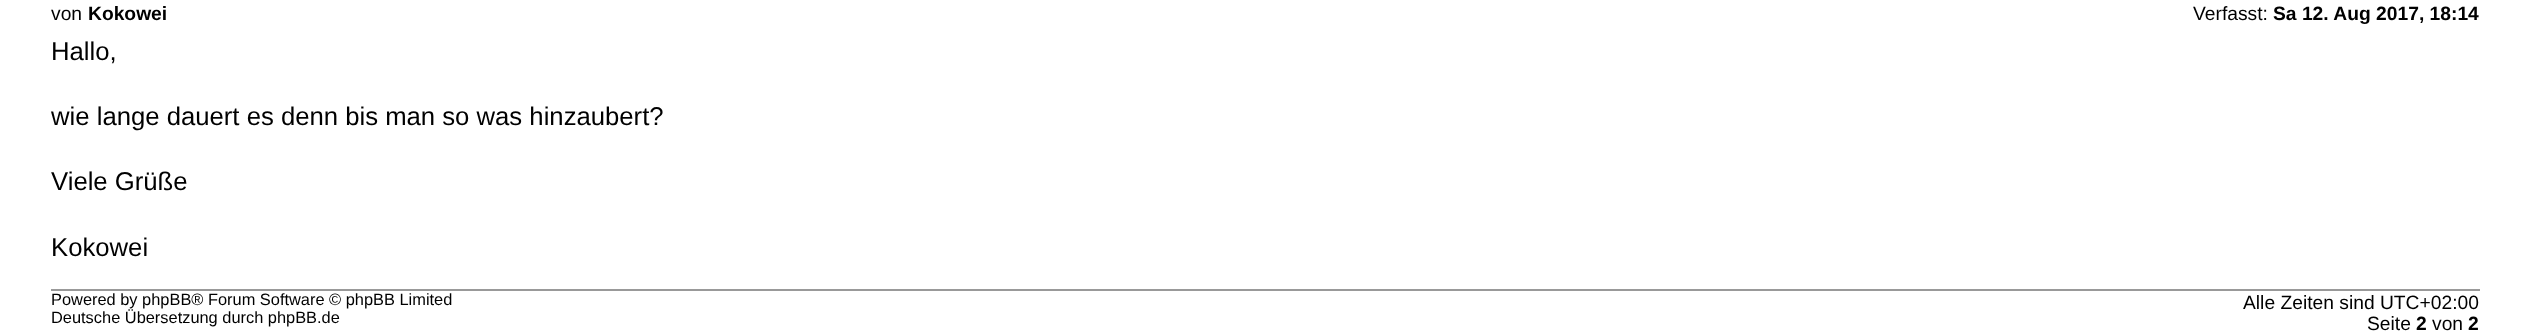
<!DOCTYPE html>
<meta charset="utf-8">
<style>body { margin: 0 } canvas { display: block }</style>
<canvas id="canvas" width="2529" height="331"></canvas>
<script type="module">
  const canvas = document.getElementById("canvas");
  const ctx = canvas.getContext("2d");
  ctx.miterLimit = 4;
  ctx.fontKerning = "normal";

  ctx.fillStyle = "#ffffff";
  ctx.fillRect(0, 0, 2529, 331);
  ctx.font = "19.25px Liberation Sans";
  ctx.fillStyle = "#000000";
  ctx.fillText("von", 51, 20);
  ctx.font = "bold 19.25px Liberation Sans";
  ctx.fillText("Kokowei", 88, 20);
  ctx.font = "19.25px Liberation Sans";
  ctx.fillText("Verfasst:", 2193, 20);
  ctx.font = "bold 19.25px Liberation Sans";
  ctx.fillText("Sa 12. Aug 2017, 18:14", 2273, 20);
  ctx.font = "25.7px Liberation Sans";
  ctx.fillText("Hallo,", 51, 60);
  ctx.fillText("wie lange dauert es denn bis man so was hinzaubert?", 51, 125);
  ctx.fillText("Viele Grüße", 51, 190);
  ctx.fillText("Kokowei", 51, 256);
  ctx.fillStyle = "#999999";
  ctx.fillRect(51, 289, 2429, 2);
  ctx.font = "16.4px Liberation Sans";
  ctx.fillStyle = "#000000";
  ctx.fillText("Powered by phpBB® Forum Software © phpBB Limited", 51, 305);
  ctx.fillText("Deutsche Übersetzung durch phpBB.de", 51, 323);
  ctx.font = "19.25px Liberation Sans";
  ctx.fillText("Alle Zeiten sind UTC+02:00", 2243, 309);
  ctx.fillText("Seite", 2367, 330);
  ctx.font = "bold 19.25px Liberation Sans";
  ctx.fillText("2", 2416, 330);
  ctx.font = "19.25px Liberation Sans";
  ctx.fillText("von", 2432, 330);
  ctx.font = "bold 19.25px Liberation Sans";
  ctx.fillText("2", 2468, 330);
</script>
